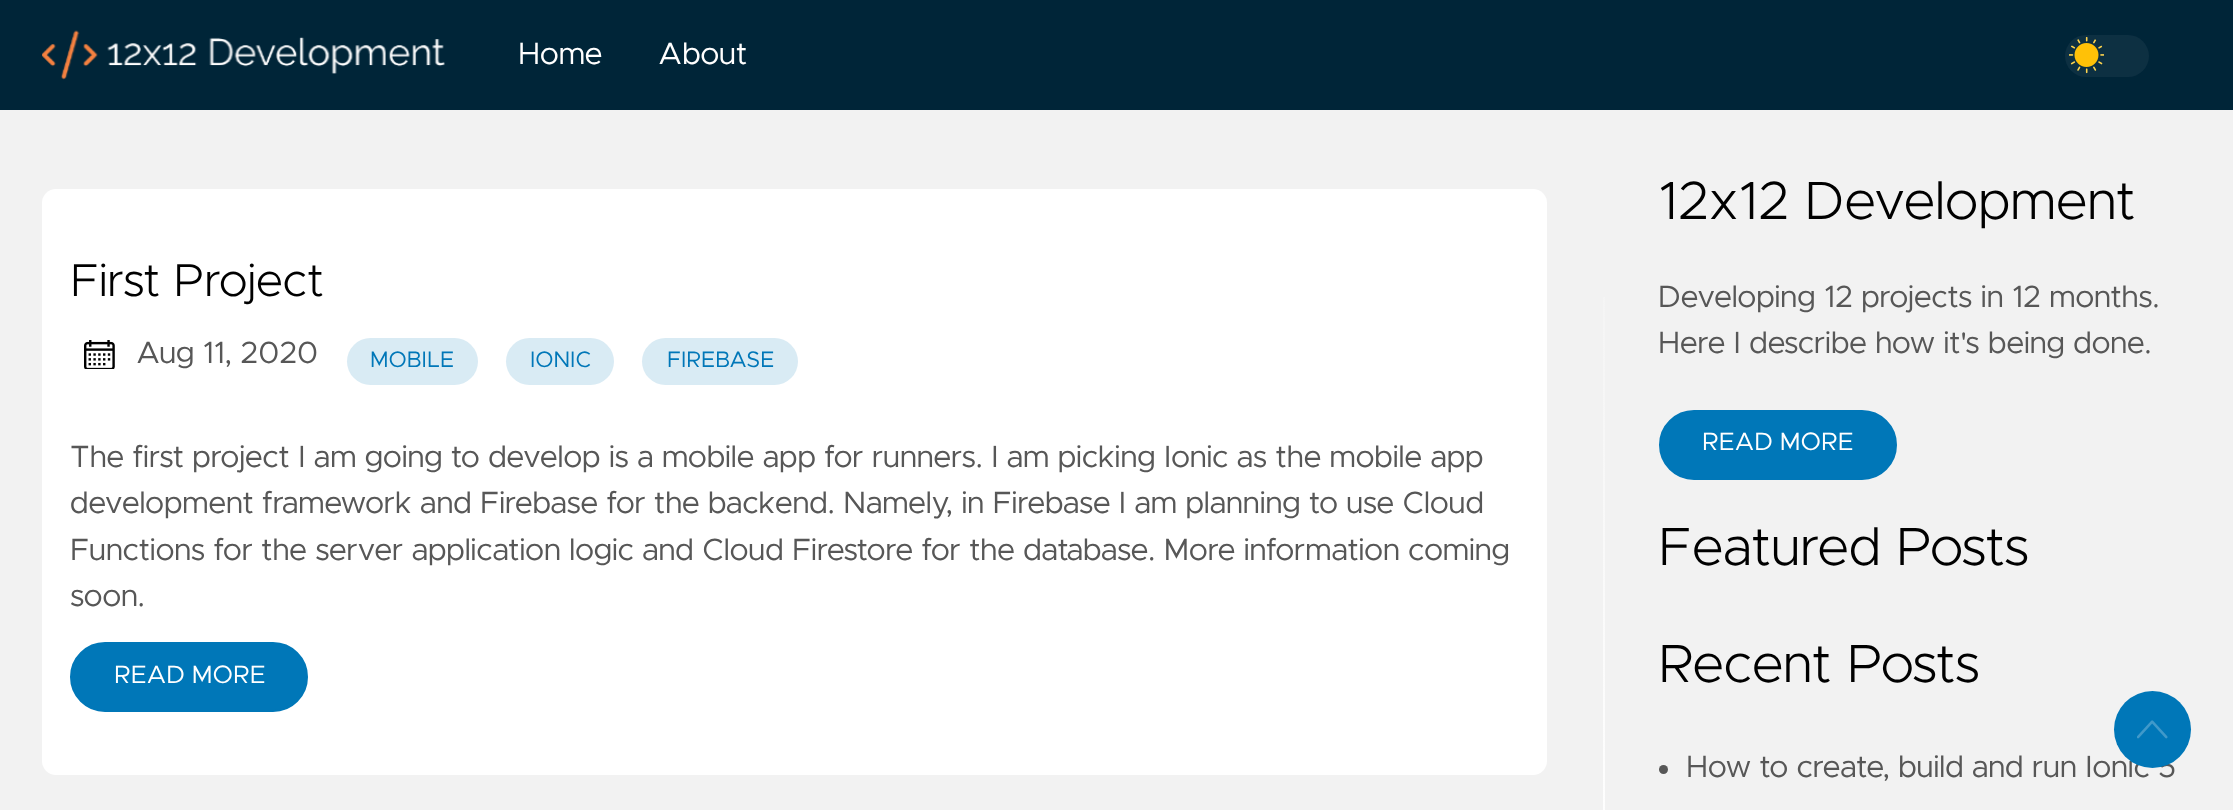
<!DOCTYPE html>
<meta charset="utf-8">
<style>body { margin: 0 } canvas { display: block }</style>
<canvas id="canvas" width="2233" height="810"></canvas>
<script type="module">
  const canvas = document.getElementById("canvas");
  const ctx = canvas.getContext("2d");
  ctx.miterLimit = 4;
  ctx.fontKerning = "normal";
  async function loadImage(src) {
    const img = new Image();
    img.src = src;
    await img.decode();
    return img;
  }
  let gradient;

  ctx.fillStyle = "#f2f2f2";
  ctx.fillRect(0, 0, 2233, 810);
  ctx.fillStyle = "#002538";
  ctx.fillRect(0, 0, 2233, 110);
  ctx.drawImage(await loadImage("img1.png"), 42, 30, 403, 50);
  ctx.font = "30.8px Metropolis";
  ctx.fillStyle = "#ffffff";
  ctx.fillText("Home", 518, 64);
  ctx.fillText("About", 658, 64);
  ctx.fillStyle = "#0d3042";
  ctx.beginPath();
  ctx.roundRect(2065, 35, 84, 42, 21);
  ctx.fill();
  ctx.drawImage(await loadImage("img2.png"), 2069, 37, 35, 37);
  ctx.fillStyle = "#ffffff";
  ctx.beginPath();
  ctx.roundRect(42, 189, 1505, 586, 14);
  ctx.fill();
  ctx.font = "300 46.25px Metropolis";
  ctx.fillStyle = "#000000";
  ctx.fillText("First Project", 70, 296);
  ctx.drawImage(await loadImage("img3.png"), 84, 340, 31, 29);
  ctx.font = "30.8px Metropolis";
  ctx.fillStyle = "#575757";
  ctx.fillText("Aug 11, 2020", 136, 363);
  ctx.fillStyle = "#d9ebf4";
  ctx.beginPath();
  ctx.roundRect(347, 338, 131, 47, 23.5);
  ctx.fill();
  ctx.font = "22.5px Metropolis";
  ctx.fillStyle = "#0077b8";
  ctx.fillText("MOBILE", 370, 367);
  ctx.fillStyle = "#d9ebf4";
  ctx.beginPath();
  ctx.roundRect(506, 338, 108, 47, 23.5);
  ctx.fill();
  ctx.fillStyle = "#0077b8";
  ctx.fillText("IONIC", 530, 367);
  ctx.fillStyle = "#d9ebf4";
  ctx.beginPath();
  ctx.roundRect(642, 338, 156, 47, 23.5);
  ctx.fill();
  ctx.fillStyle = "#0077b8";
  ctx.fillText("FIREBASE", 667, 367);
  ctx.font = "30.8px Metropolis";
  ctx.fillStyle = "#575757";
  ctx.fillText("The first project I am going to develop is a mobile app for runners. I am picking Ionic as the mobile app", 70, 467);
  ctx.fillText("development framework and Firebase for the backend. Namely, in Firebase I am planning to use Cloud", 70, 513);
  ctx.fillText("Functions for the server application logic and Cloud Firestore for the database. More information coming", 70, 560);
  ctx.fillText("soon.", 70, 606);
  ctx.fillStyle = "#0077b8";
  ctx.beginPath();
  ctx.roundRect(71, 643, 236, 68, 34);
  ctx.fill();
  ctx.strokeStyle = "#0077b8";
  ctx.lineWidth = 2;
  ctx.stroke();
  ctx.font = "25.25px Metropolis";
  ctx.fillStyle = "#ffffff";
  ctx.fillText("READ MORE", 114, 683);
  ctx.font = "300 54px Metropolis";
  ctx.fillStyle = "#000000";
  ctx.fillText("12x12 Development", 1658, 219);
  gradient = ctx.createLinearGradient(1604, 159, 1604, 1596);
  gradient.addColorStop(0, "#f2f2f2");
  gradient.addColorStop(0.5, "#ffffff");
  gradient.addColorStop(1, "#f2f2f2");
  ctx.fillStyle = gradient;
  ctx.fillRect(1603, 297, 2, 513);
  ctx.font = "30.8px Metropolis";
  ctx.fillStyle = "#575757";
  ctx.fillText("Developing 12 projects in 12 months.", 1658, 307);
  ctx.fillText("Here I describe how it's being done.", 1658, 353);
  ctx.fillStyle = "#0077b8";
  ctx.beginPath();
  ctx.roundRect(1660, 411, 236, 68, 34);
  ctx.fill();
  ctx.stroke();
  ctx.font = "25.25px Metropolis";
  ctx.fillStyle = "#ffffff";
  ctx.fillText("READ MORE", 1702, 450);
  ctx.font = "300 54px Metropolis";
  ctx.fillStyle = "#000000";
  ctx.fillText("Featured Posts", 1658, 565);
  ctx.fillText("Recent Posts", 1658, 682);
  ctx.fillStyle = "#575757";
  ctx.beginPath();
  ctx.arc(1663.5, 769.5, 4.5, 0, Math.PI * 2);
  ctx.fill();
  ctx.font = "30.8px Metropolis";
  ctx.fillText("How to create, build and run Ionic 5", 1686, 777);
  ctx.fillStyle = "#0077b8";
  ctx.beginPath();
  ctx.arc(2152.5, 729.5, 38.5, 0, Math.PI * 2);
  ctx.fill();
  ctx.drawImage(await loadImage("img4.png"), 2137, 720, 31, 19);
</script>
